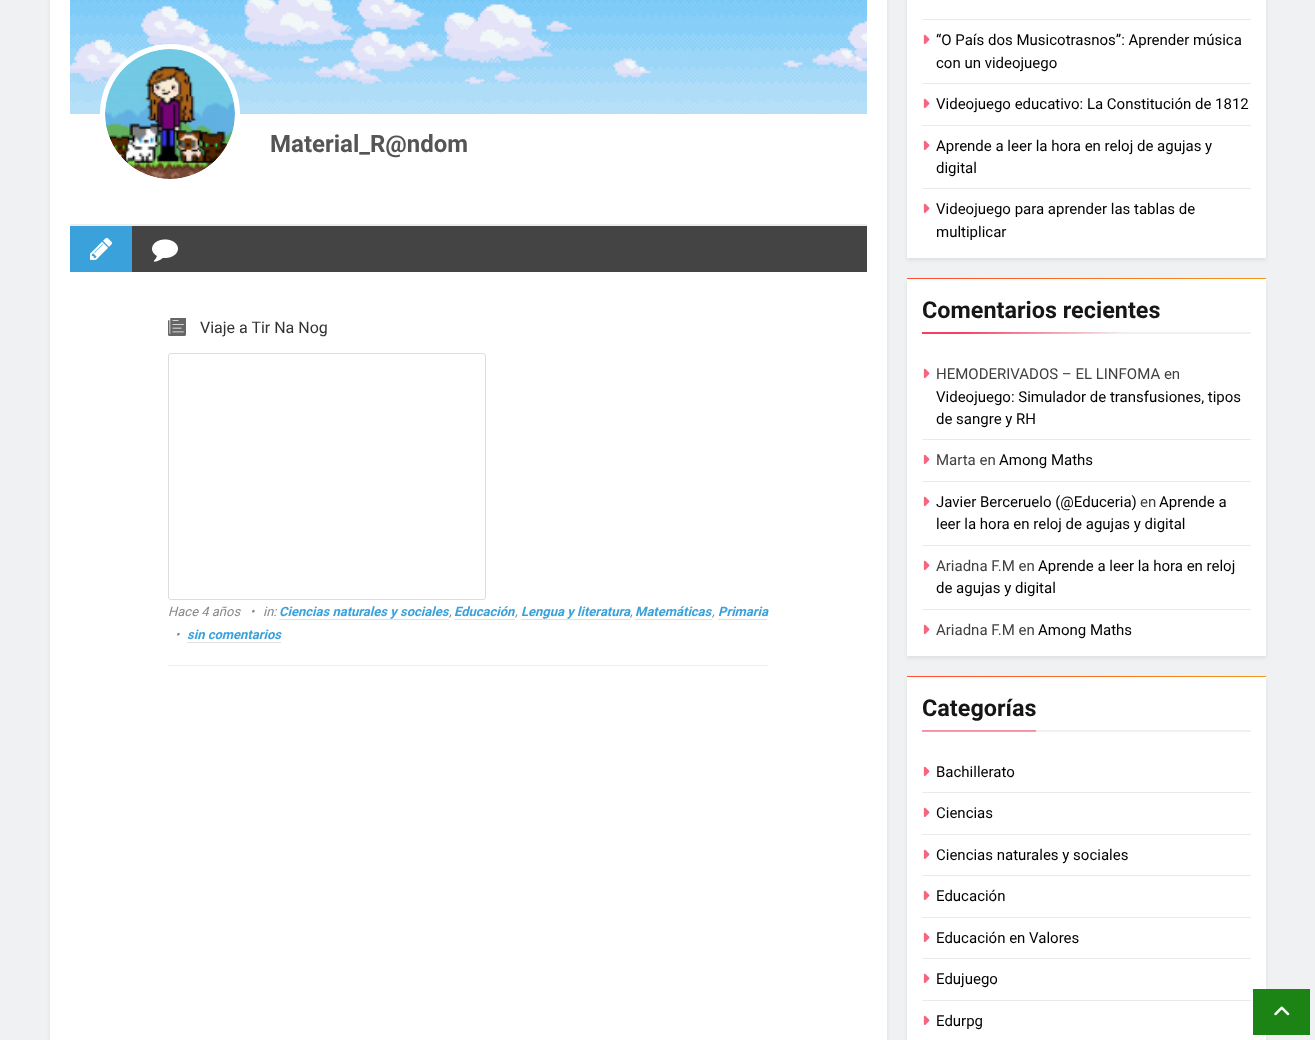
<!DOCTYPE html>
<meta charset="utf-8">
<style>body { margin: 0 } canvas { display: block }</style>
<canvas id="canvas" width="1315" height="1040"></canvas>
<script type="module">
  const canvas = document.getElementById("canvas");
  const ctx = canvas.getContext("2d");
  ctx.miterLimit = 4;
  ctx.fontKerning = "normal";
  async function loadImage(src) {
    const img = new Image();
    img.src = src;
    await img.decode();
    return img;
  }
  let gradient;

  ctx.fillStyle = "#f0f1f2";
  ctx.fillRect(0, 0, 1315, 1040);
  ctx.fillStyle = "rgba(0, 0, 0, 0.08)";
  ctx.filter = "blur(2px)";
  ctx.beginPath();
  ctx.rect(50, -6, 837, 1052);
  ctx.fill();
  ctx.filter = "none";
  ctx.fillStyle = "#ffffff";
  ctx.fillRect(50, 0, 837, 1040);
  ctx.drawImage(await loadImage("img1.png"), 70, 0, 797, 114);
  ctx.fillStyle = "#eeeeee";
  ctx.fillRect(70, 224, 797, 2);
  ctx.fillStyle = "#ffffff";
  ctx.beginPath();
  ctx.arc(170, 114, 67.5, 0, Math.PI * 2);
  ctx.fill();
  ctx.strokeStyle = "#ffffff";
  ctx.lineWidth = 5;
  ctx.stroke();
  ctx.drawImage(await loadImage("img2.png"), 105, 49, 130, 130);
  ctx.font = "bold 24px Roboto";
  ctx.fillStyle = "#555555";
  ctx.fillText("Material_R@ndom", 270, 152);
  ctx.fillStyle = "#444444";
  ctx.fillRect(132, 226, 735, 46);
  ctx.fillStyle = "#3ba1da";
  ctx.fillRect(70, 226, 62, 46);
  ctx.drawImage(await loadImage("img3.png"), 90, 237, 22, 23);
  ctx.drawImage(await loadImage("img4.png"), 152, 239, 26, 23);
  ctx.fillStyle = "#eeeeee";
  ctx.fillRect(168, 665, 600, 1);
  ctx.drawImage(await loadImage("img5.png"), 168, 318, 18, 18);
  ctx.font = "16px Roboto";
  ctx.fillStyle = "#333333";
  ctx.fillText("Viaje a Tir Na Nog", 200, 333);
  ctx.beginPath();
  ctx.roundRect(168.5, 353.5, 317, 246, 2.5);
  ctx.strokeStyle = "#dddddd";
  ctx.lineWidth = 1;
  ctx.stroke();
  ctx.font = "italic 13px Roboto";
  ctx.fillStyle = "#888888";
  ctx.fillText("Hace 4 años", 168, 616);
  ctx.fillText("•", 250, 616);
  ctx.fillText("in:", 263, 616);
  ctx.font = "italic bold 13px Roboto";
  ctx.fillStyle = "#3ba1da";
  ctx.fillText("Ciencias naturales y sociales", 279, 616);
  ctx.fillText("Educación", 454, 616);
  ctx.fillText("Lengua y literatura", 521, 616);
  ctx.fillText("Matemáticas", 635, 616);
  ctx.fillText("Primaria", 718, 616);
  ctx.font = "italic 13px Roboto";
  ctx.fillStyle = "#888888";
  ctx.fillText(",", 449, 616);
  ctx.fillStyle = "#e0e0e0";
  ctx.fillRect(279, 619, 170, 1);
  ctx.fillStyle = "#888888";
  ctx.fillText(",", 515, 616);
  ctx.fillStyle = "#e0e0e0";
  ctx.fillRect(454, 619, 61, 1);
  ctx.fillStyle = "#888888";
  ctx.fillText(",", 630, 616);
  ctx.fillStyle = "#e0e0e0";
  ctx.fillRect(521, 619, 109, 1);
  ctx.fillStyle = "#888888";
  ctx.fillText(",", 712, 616);
  ctx.fillStyle = "#e0e0e0";
  ctx.fillRect(635, 619, 77, 1);
  ctx.fillRect(718, 619, 49, 1);
  ctx.fillStyle = "#888888";
  ctx.fillText("•", 175, 639);
  ctx.font = "italic bold 13px Roboto";
  ctx.fillStyle = "#3ba1da";
  ctx.fillText("sin comentarios", 187, 639);
  ctx.fillStyle = "#e0e0e0";
  ctx.fillRect(187, 642, 94, 1);
  ctx.fillStyle = "rgba(0, 0, 0, 0.08)";
  ctx.filter = "blur(2px)";
  ctx.beginPath();
  ctx.rect(907, -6, 359, 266);
  ctx.fill();
  ctx.filter = "none";
  ctx.fillStyle = "#ffffff";
  ctx.fillRect(907, 0, 359, 258);
  ctx.fillStyle = "#eaeaea";
  ctx.fillRect(922, 19, 329, 1);
  ctx.fillRect(922, 83, 329, 1);
  ctx.drawImage(await loadImage("img6.png"), 923, 34, 7, 10);
  ctx.font = "15px Roboto";
  ctx.fillStyle = "#000000";
  ctx.fillText("“O País dos Musicotrasnos”: Aprender música", 936, 45);
  ctx.fillText("con un videojuego", 936, 68);
  ctx.fillStyle = "#eaeaea";
  ctx.fillRect(922, 125, 329, 1);
  ctx.drawImage(await loadImage("img6.png"), 923, 98, 7, 10);
  ctx.fillStyle = "#000000";
  ctx.fillText("Videojuego educativo: La Constitución de 1812", 936, 109);
  ctx.fillStyle = "#eaeaea";
  ctx.fillRect(922, 188, 329, 1);
  ctx.drawImage(await loadImage("img6.png"), 923, 140, 7, 10);
  ctx.fillStyle = "#000000";
  ctx.fillText("Aprende a leer la hora en reloj de agujas y", 936, 151);
  ctx.fillText("digital", 936, 173);
  ctx.drawImage(await loadImage("img6.png"), 923, 203, 7, 10);
  ctx.fillText("Videojuego para aprender las tablas de", 936, 214);
  ctx.fillText("multiplicar", 936, 237);
  ctx.fillStyle = "rgba(0, 0, 0, 0.08)";
  ctx.filter = "blur(2px)";
  ctx.beginPath();
  ctx.rect(907, 281, 359, 377);
  ctx.fill();
  ctx.filter = "none";
  ctx.fillStyle = "#ffffff";
  ctx.fillRect(907, 279, 359, 377);
  gradient = ctx.createLinearGradient(997, 189, 1177, 369);
  gradient.addColorStop(0.1, "#ff512f");
  gradient.addColorStop(1, "#f09819");
  ctx.fillStyle = gradient;
  ctx.fillRect(907, 278, 359, 1);
  ctx.fillStyle = "#f0f0f0";
  ctx.fillRect(1160, 332, 91, 2);
  ctx.font = "bold 23.4px Roboto";
  ctx.fillStyle = "#161616";
  ctx.fillText("Comentarios recientes", 922, 318);
  gradient = ctx.createLinearGradient(1040, 324, 1042, 342);
  gradient.addColorStop(0, "#f43f5e");
  gradient.addColorStop(1, "#f0f0f0");
  ctx.fillStyle = gradient;
  ctx.fillRect(922, 332, 238, 2);
  ctx.fillStyle = "#eaeaea";
  ctx.fillRect(922, 439, 329, 1);
  ctx.drawImage(await loadImage("img6.png"), 923, 368, 7, 10);
  ctx.font = "15px Roboto";
  ctx.fillStyle = "#404040";
  ctx.fillText("HEMODERIVADOS – EL LINFOMA en", 936, 379);
  ctx.fillStyle = "#000000";
  ctx.fillText("Videojuego: Simulador de transfusiones, tipos", 936, 402);
  ctx.fillText("de sangre y RH", 936, 424);
  ctx.fillStyle = "#eaeaea";
  ctx.fillRect(922, 481, 329, 1);
  ctx.drawImage(await loadImage("img6.png"), 923, 454, 7, 10);
  ctx.fillStyle = "#404040";
  ctx.fillText("Marta en", 936, 465);
  ctx.fillStyle = "#000000";
  ctx.fillText("Among Maths", 999, 465);
  ctx.fillStyle = "#eaeaea";
  ctx.fillRect(922, 545, 329, 1);
  ctx.drawImage(await loadImage("img6.png"), 923, 496, 7, 10);
  ctx.fillStyle = "#000000";
  ctx.fillText("Javier Berceruelo (@Educeria)", 936, 507);
  ctx.fillStyle = "#404040";
  ctx.fillText("en", 1140, 507);
  ctx.fillStyle = "#000000";
  ctx.fillText("Aprende a", 1159, 507);
  ctx.fillText("leer la hora en reloj de agujas y digital", 936, 529);
  ctx.fillStyle = "#eaeaea";
  ctx.fillRect(922, 609, 329, 1);
  ctx.drawImage(await loadImage("img6.png"), 923, 560, 7, 10);
  ctx.fillStyle = "#404040";
  ctx.fillText("Ariadna F.M en", 936, 571);
  ctx.fillStyle = "#000000";
  ctx.fillText("Aprende a leer la hora en reloj", 1038, 571);
  ctx.fillText("de agujas y digital", 936, 593);
  ctx.drawImage(await loadImage("img6.png"), 923, 624, 7, 10);
  ctx.fillStyle = "#404040";
  ctx.fillText("Ariadna F.M en", 936, 635);
  ctx.fillStyle = "#000000";
  ctx.fillText("Among Maths", 1038, 635);
  ctx.fillStyle = "rgba(0, 0, 0, 0.08)";
  ctx.filter = "blur(2px)";
  ctx.beginPath();
  ctx.rect(907, 679, 359, 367);
  ctx.fill();
  ctx.filter = "none";
  ctx.fillStyle = "#ffffff";
  ctx.fillRect(907, 677, 359, 363);
  gradient = ctx.createLinearGradient(997, 587, 1177, 767);
  gradient.addColorStop(0.1, "#ff512f");
  gradient.addColorStop(1, "#f09819");
  ctx.fillStyle = gradient;
  ctx.fillRect(907, 676, 359, 1);
  ctx.fillStyle = "#f0f0f0";
  ctx.fillRect(1036, 730, 215, 2);
  ctx.font = "bold 23.4px Roboto";
  ctx.fillStyle = "#161616";
  ctx.fillText("Categorías", 922, 716);
  gradient = ctx.createLinearGradient(979, 726, 979, 736);
  gradient.addColorStop(0, "#f43f5e");
  gradient.addColorStop(1, "#f0f0f0");
  ctx.fillStyle = gradient;
  ctx.fillRect(922, 730, 114, 2);
  ctx.fillStyle = "#eaeaea";
  ctx.fillRect(922, 792, 329, 1);
  ctx.drawImage(await loadImage("img6.png"), 923, 766, 7, 10);
  ctx.font = "15px Roboto";
  ctx.fillStyle = "#000000";
  ctx.fillText("Bachillerato", 936, 777);
  ctx.fillStyle = "#eaeaea";
  ctx.fillRect(922, 834, 329, 1);
  ctx.drawImage(await loadImage("img6.png"), 923, 807, 7, 10);
  ctx.fillStyle = "#000000";
  ctx.fillText("Ciencias", 936, 818);
  ctx.fillStyle = "#eaeaea";
  ctx.fillRect(922, 875, 329, 1);
  ctx.drawImage(await loadImage("img6.png"), 923, 849, 7, 10);
  ctx.fillStyle = "#000000";
  ctx.fillText("Ciencias naturales y sociales", 936, 860);
  ctx.fillStyle = "#eaeaea";
  ctx.fillRect(922, 917, 329, 1);
  ctx.drawImage(await loadImage("img6.png"), 923, 890, 7, 10);
  ctx.fillStyle = "#000000";
  ctx.fillText("Educación", 936, 901);
  ctx.fillStyle = "#eaeaea";
  ctx.fillRect(922, 958, 329, 1);
  ctx.drawImage(await loadImage("img6.png"), 923, 932, 7, 10);
  ctx.fillStyle = "#000000";
  ctx.fillText("Educación en Valores", 936, 943);
  ctx.fillStyle = "#eaeaea";
  ctx.fillRect(922, 1000, 329, 1);
  ctx.drawImage(await loadImage("img6.png"), 923, 973, 7, 10);
  ctx.fillStyle = "#000000";
  ctx.fillText("Edujuego", 936, 984);
  ctx.drawImage(await loadImage("img6.png"), 923, 1015, 7, 10);
  ctx.fillText("Edurpg", 936, 1026);
  ctx.fillStyle = "#1b8415";
  ctx.fillRect(1253, 989, 57, 46);
  ctx.drawImage(await loadImage("img7.png"), 1274, 1006, 16, 10);
</script>
